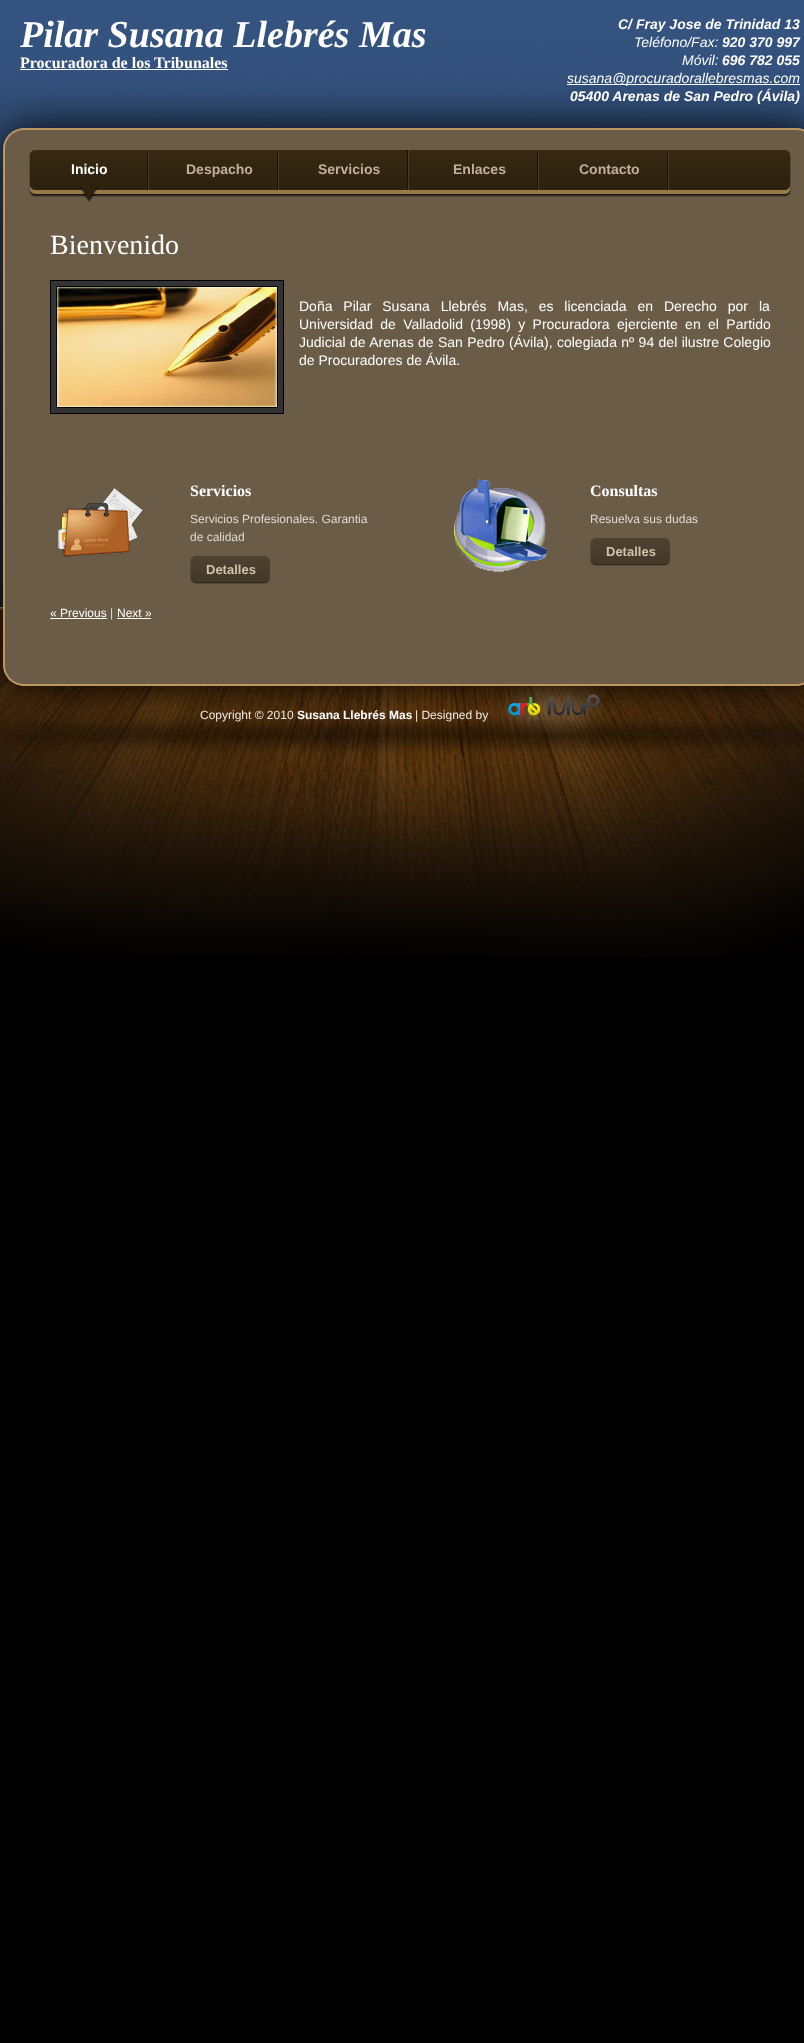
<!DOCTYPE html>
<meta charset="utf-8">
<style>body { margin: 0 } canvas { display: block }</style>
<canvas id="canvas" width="804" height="2043"></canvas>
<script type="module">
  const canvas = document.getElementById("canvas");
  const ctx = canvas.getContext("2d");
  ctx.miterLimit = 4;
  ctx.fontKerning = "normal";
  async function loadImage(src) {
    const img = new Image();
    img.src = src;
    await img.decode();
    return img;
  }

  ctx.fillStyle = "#000000";
  ctx.fillRect(0, 0, 804, 2043);
  ctx.drawImage(await loadImage("img1.png"), 0, 0, 804, 110);
  ctx.drawImage(await loadImage("img2.png"), 0, 110, 804, 20);
  ctx.font = "italic bold 38px Liberation Serif";
  ctx.fillStyle = "#ffffff";
  ctx.fillText("Pilar Susana Llebrés Mas", 20, 47);
  ctx.font = "bold 16px Liberation Serif";
  ctx.fillText("Procuradora de los Tribunales", 20, 68);
  ctx.fillRect(20, 69, 208, 1);
  ctx.font = "italic bold 14px Liberation Sans";
  ctx.fillText("C/ Fray Jose de Trinidad 13", 618, 29);
  ctx.font = "italic 14px Liberation Sans";
  ctx.fillText("Teléfono/Fax:", 634, 47);
  ctx.font = "italic bold 14px Liberation Sans";
  ctx.fillText("920 370 997", 722, 47);
  ctx.font = "italic 14px Liberation Sans";
  ctx.fillText("Móvil:", 682, 65);
  ctx.font = "italic bold 14px Liberation Sans";
  ctx.fillText("696 782 055", 722, 65);
  ctx.fillRect(567, 84, 233, 1);
  ctx.font = "italic 14px Liberation Sans";
  ctx.fillText("susana@procuradorallebresmas.com", 567, 83);
  ctx.font = "italic bold 14px Liberation Sans";
  ctx.fillText("05400 Arenas de San Pedro (Ávila)", 570, 101);
  ctx.drawImage(await loadImage("img3.png"), 0, 130, 804, 555);
  ctx.drawImage(await loadImage("img4.png"), 29, 150, 762, 47);
  ctx.drawImage(await loadImage("img5.png"), 147, 150, 2, 40);
  ctx.drawImage(await loadImage("img6.png"), 80, 186, 18, 16);
  ctx.font = "bold 14px Liberation Sans";
  ctx.fillText("Inicio", 71, 174);
  ctx.drawImage(await loadImage("img5.png"), 277, 150, 2, 40);
  ctx.fillStyle = "#beb09a";
  ctx.fillText("Despacho", 186, 174);
  ctx.drawImage(await loadImage("img5.png"), 407, 150, 2, 40);
  ctx.fillText("Servicios", 318, 174);
  ctx.drawImage(await loadImage("img5.png"), 537, 150, 2, 40);
  ctx.fillText("Enlaces", 453, 174);
  ctx.drawImage(await loadImage("img5.png"), 667, 150, 2, 40);
  ctx.fillText("Contacto", 579, 174);
  ctx.font = "28px Liberation Serif";
  ctx.fillStyle = "#ffffff";
  ctx.fillText("Bienvenido", 50, 254);
  ctx.fillStyle = "#333333";
  ctx.beginPath();
  ctx.rect(50.5, 280.5, 233, 133);
  ctx.fill();
  ctx.strokeStyle = "#000000";
  ctx.stroke();
  ctx.strokeRect(56.5, 286.5, 221, 121);
  ctx.drawImage(await loadImage("img7.png"), 57, 287, 220, 120);
  ctx.wordSpacing = "7px";
  ctx.font = "14px Liberation Sans";
  ctx.fillStyle = "#ffffff";
  ctx.fillText("Doña Pilar Susana Llebrés Mas, es licenciada en Derecho por la", 299, 311);
  ctx.wordSpacing = "3.5px";
  ctx.fillText("Universidad de Valladolid (1998) y Procuradora ejerciente en el Partido", 299, 329);
  ctx.wordSpacing = "0.5px";
  ctx.fillText("Judicial de Arenas de San Pedro (Ávila), colegiada nº 94 del ilustre Colegio", 299, 347);
  ctx.wordSpacing = "0px";
  ctx.fillText("de Procuradores de Ávila.", 299, 365);
  ctx.drawImage(await loadImage("img8.png"), 58, 488, 85, 69);
  ctx.font = "bold 16px Liberation Serif";
  ctx.fillText("Servicios", 190, 496);
  ctx.font = "12px Liberation Sans";
  ctx.fillStyle = "#dfdcd8";
  ctx.fillText("Servicios Profesionales. Garantia", 190, 523);
  ctx.fillText("de calidad", 190, 541);
  ctx.drawImage(await loadImage("img9.png"), 190, 556, 81, 28);
  ctx.font = "bold 13px Liberation Sans";
  ctx.fillStyle = "#d1c2ac";
  ctx.fillText("Detalles", 206, 574);
  ctx.drawImage(await loadImage("img10.png"), 454, 478, 94, 95);
  ctx.font = "bold 16px Liberation Serif";
  ctx.fillStyle = "#ffffff";
  ctx.fillText("Consultas", 590, 496);
  ctx.font = "12px Liberation Sans";
  ctx.fillStyle = "#dfdcd8";
  ctx.fillText("Resuelva sus dudas", 590, 523);
  ctx.drawImage(await loadImage("img9.png"), 590, 538, 81, 28);
  ctx.font = "bold 13px Liberation Sans";
  ctx.fillStyle = "#d1c2ac";
  ctx.fillText("Detalles", 606, 556);
  ctx.font = "12px Liberation Sans";
  ctx.fillStyle = "#ffffff";
  ctx.fillText("« Previous", 50, 617);
  ctx.fillRect(50, 618, 57, 1);
  ctx.fillStyle = "#dfdcd8";
  ctx.fillText("|", 110, 617);
  ctx.fillStyle = "#ffffff";
  ctx.fillText("Next »", 117, 617);
  ctx.fillRect(117, 618, 34, 1);
  ctx.drawImage(await loadImage("img11.png"), 0, 885, 804, 72);
  ctx.drawImage(await loadImage("img12.png"), 0, 685, 804, 200);
  ctx.fillStyle = "#ece9e6";
  ctx.fillText("Copyright © 2010", 200, 719);
  ctx.font = "bold 12px Liberation Sans";
  ctx.fillStyle = "#ffffff";
  ctx.fillText("Susana Llebrés Mas", 297, 719);
  ctx.font = "12px Liberation Sans";
  ctx.fillStyle = "#ece9e6";
  ctx.fillText("| Designed by", 415, 719);
  ctx.drawImage(await loadImage("img13.png"), 502, 686, 101, 48);
</script>
